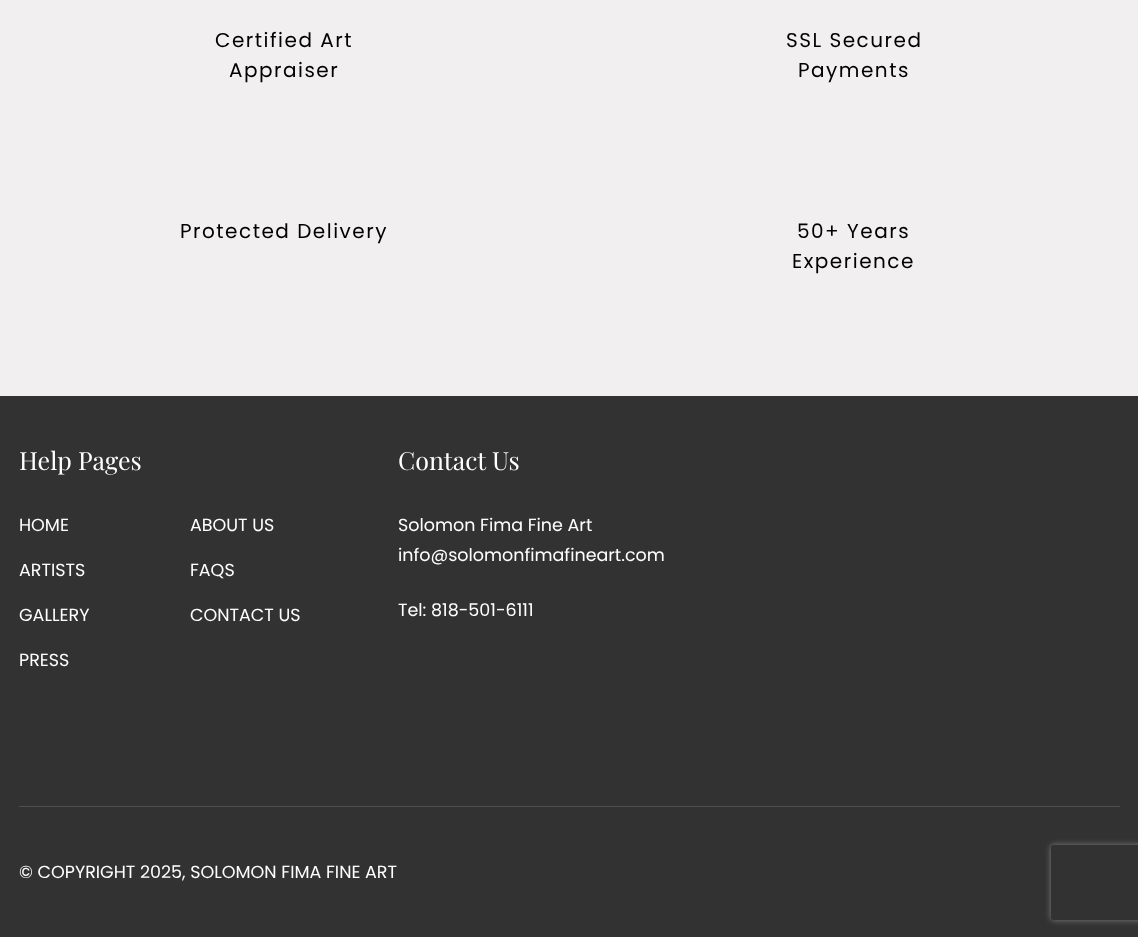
<!DOCTYPE html>
<meta charset="utf-8">
<style>body { margin: 0 } canvas { display: block }</style>
<canvas id="canvas" width="1138" height="937"></canvas>
<script type="module">
  const canvas = document.getElementById("canvas");
  const ctx = canvas.getContext("2d");
  ctx.miterLimit = 4;
  ctx.fontKerning = "normal";

  ctx.fillStyle = "#323232";
  ctx.fillRect(0, 0, 1138, 937);
  ctx.fillStyle = "#f1efef";
  ctx.fillRect(0, 0, 1138, 396);
  ctx.letterSpacing = "1.5px";
  ctx.font = "20px Poppins";
  ctx.fillStyle = "#000000";
  ctx.fillText("Certified Art", 215, 47);
  ctx.fillText("Appraiser", 229, 77);
  ctx.fillText("SSL Secured", 786, 47);
  ctx.fillText("Payments", 798, 77);
  ctx.fillText("Protected Delivery", 180, 238);
  ctx.fillText("50+ Years", 797, 238);
  ctx.fillText("Experience", 792, 268);
  ctx.letterSpacing = "0px";
  ctx.font = "25px Playfair Display";
  ctx.fillStyle = "#ffffff";
  ctx.fillText("Help Pages", 19, 470);
  ctx.font = "17.5px Poppins";
  ctx.fillText("HOME", 19, 531);
  ctx.fillText("ARTISTS", 19, 576);
  ctx.fillText("GALLERY", 19, 621);
  ctx.fillText("PRESS", 19, 666);
  ctx.fillText("ABOUT US", 190, 531);
  ctx.fillText("FAQS", 190, 576);
  ctx.fillText("CONTACT US", 190, 621);
  ctx.font = "25px Playfair Display";
  ctx.fillText("Contact Us", 398, 470);
  ctx.font = "17.5px Poppins";
  ctx.fillText("Solomon Fima Fine Art", 398, 531);
  ctx.fillText("info@solomonfimafineart.com", 398, 561);
  ctx.fillText("Tel: 818-501-6111", 398, 616);
  ctx.fillStyle = "#4f4f4f";
  ctx.fillRect(19, 806, 1101, 1);
  ctx.fillStyle = "#ffffff";
  ctx.fillText("© COPYRIGHT 2025, SOLOMON FIMA FINE ART", 19, 878);
  ctx.save();
  ctx.beginPath();
  ctx.moveTo(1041, 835);
  ctx.lineTo(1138, 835);
  ctx.lineTo(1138, 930);
  ctx.lineTo(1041, 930);
  ctx.closePath();
  ctx.moveTo(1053.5, 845);
  ctx.lineTo(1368.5, 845);
  ctx.bezierCurveTo(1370, 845, 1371, 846, 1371, 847.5);
  ctx.lineTo(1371, 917.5);
  ctx.bezierCurveTo(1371, 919, 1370, 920, 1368.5, 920);
  ctx.lineTo(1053.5, 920);
  ctx.bezierCurveTo(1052, 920, 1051, 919, 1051, 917.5);
  ctx.lineTo(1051, 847.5);
  ctx.bezierCurveTo(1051, 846, 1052, 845, 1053.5, 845);
  ctx.closePath();
  ctx.clip("evenodd");
  ctx.fillStyle = "#808080";
  ctx.filter = "blur(3px)";
  ctx.beginPath();
  ctx.roundRect(1051, 845, 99, 75, 2.5);
  ctx.fill();
  ctx.filter = "none";
  ctx.restore();
</script>
